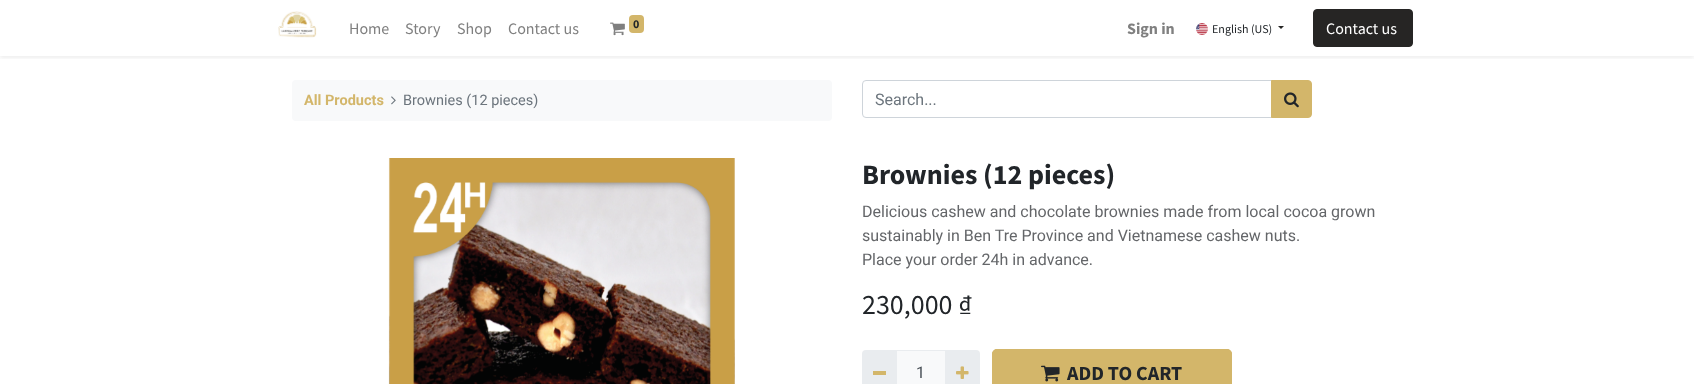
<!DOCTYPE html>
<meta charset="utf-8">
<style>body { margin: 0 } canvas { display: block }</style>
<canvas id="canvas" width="1694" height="384"></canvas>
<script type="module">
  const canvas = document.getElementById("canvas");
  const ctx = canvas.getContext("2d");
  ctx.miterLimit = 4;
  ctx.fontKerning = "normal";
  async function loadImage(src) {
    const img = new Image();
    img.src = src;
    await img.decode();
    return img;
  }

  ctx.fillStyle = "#ffffff";
  ctx.fillRect(0, 0, 1694, 384);
  ctx.save();
  ctx.beginPath();
  ctx.rect(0, 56, 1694, 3);
  ctx.clip();
  ctx.fillStyle = "rgba(0, 0, 0, 0.07)";
  ctx.filter = "blur(2px)";
  ctx.beginPath();
  ctx.rect(0, 2, 1694, 56);
  ctx.fill();
  ctx.filter = "none";
  ctx.restore();
  ctx.drawImage(await loadImage("img1.png"), 278, 11, 39, 27);
  ctx.font = "16px Source Sans Pro";
  ctx.fillStyle = "#808080";
  ctx.fillText("Home", 349, 34);
  ctx.fillText("Story", 405, 34);
  ctx.fillText("Shop", 457, 34);
  ctx.fillText("Contact us", 508, 34);
  ctx.drawImage(await loadImage("img2.png"), 610, 22, 15, 14);
  ctx.fillStyle = "#d3b66a";
  ctx.beginPath();
  ctx.roundRect(629, 15, 15, 18, 4);
  ctx.fill();
  ctx.font = "bold 12px Source Sans Pro";
  ctx.fillStyle = "#212529";
  ctx.fillText("0", 633, 28);
  ctx.font = "bold 16px Source Sans Pro";
  ctx.fillStyle = "#808080";
  ctx.fillText("Sign in", 1127, 34);
  ctx.drawImage(await loadImage("img3.png"), 1196, 23, 12, 12);
  ctx.font = "12px Source Sans Pro";
  ctx.fillStyle = "#212529";
  ctx.fillText("English (US)", 1212, 33);
  ctx.fillStyle = "#262524";
  ctx.beginPath();
  ctx.moveTo(1278, 26);
  ctx.lineTo(1284, 26);
  ctx.lineTo(1281, 29);
  ctx.closePath();
  ctx.fill();
  ctx.beginPath();
  ctx.roundRect(1313.5, 9.5, 99, 37, 3.5);
  ctx.fill();
  ctx.strokeStyle = "#262524";
  ctx.stroke();
  ctx.font = "16px Source Sans Pro";
  ctx.fillStyle = "#ffffff";
  ctx.fillText("Contact us", 1326, 34);
  ctx.fillStyle = "#f8f9fa";
  ctx.beginPath();
  ctx.roundRect(292, 80, 540, 41, 4);
  ctx.fill();
  ctx.font = "bold 14.5px Roboto";
  ctx.fillStyle = "#d3b66a";
  ctx.fillText("All Products", 304, 105);
  ctx.drawImage(await loadImage("img4.png"), 391, 96, 5, 9);
  ctx.font = "14.5px Roboto";
  ctx.fillStyle = "#6c757d";
  ctx.fillText("Brownies (12 pieces)", 403, 105);
  ctx.beginPath();
  ctx.roundRect(862.5, 80.5, 409, 37, [3.5, 0, 0, 3.5]);
  ctx.strokeStyle = "#ced4da";
  ctx.stroke();
  ctx.font = "16px Roboto";
  ctx.fillText("Search...", 875, 105);
  ctx.fillStyle = "#d3b66a";
  ctx.beginPath();
  ctx.roundRect(1271.5, 80.5, 40, 37, [0, 3.5, 3.5, 0]);
  ctx.fill();
  ctx.strokeStyle = "#d3b66a";
  ctx.stroke();
  ctx.drawImage(await loadImage("img5.png"), 1284, 92, 15, 16);
  ctx.drawImage(await loadImage("img6.png"), 388, 158, 347, 226);
  ctx.font = "bold 28px Source Sans Pro";
  ctx.fillStyle = "#212529";
  ctx.fillText("Brownies (12 pieces)", 862, 184);
  ctx.font = "16px Roboto";
  ctx.fillStyle = "#646669";
  ctx.fillText("Delicious cashew and chocolate brownies made from local cocoa grown", 862, 217);
  ctx.fillText("sustainably in Ben Tre Province and Vietnamese cashew nuts.", 862, 241);
  ctx.fillText("Place your order 24h in advance.", 862, 265);
  ctx.font = "28px Source Sans Pro";
  ctx.fillStyle = "#212529";
  ctx.fillText("230,000 ₫", 862, 314);
  ctx.fillStyle = "#f8f9fa";
  ctx.beginPath();
  ctx.rect(896.5, 350.5, 49, 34);
  ctx.fill();
  ctx.strokeStyle = "#e9ecef";
  ctx.stroke();
  ctx.fillStyle = "#e9ecef";
  ctx.beginPath();
  ctx.roundRect(862, 350, 35, 34, [4, 0, 0, 0]);
  ctx.fill();
  ctx.fillStyle = "#d3b66a";
  ctx.fillRect(873, 371, 13, 4);
  ctx.font = "16px Roboto";
  ctx.fillStyle = "#495057";
  ctx.fillText("1", 916, 378);
  ctx.fillStyle = "#e9ecef";
  ctx.beginPath();
  ctx.roundRect(945, 350, 35, 34, [0, 4, 0, 0]);
  ctx.fill();
  ctx.drawImage(await loadImage("img7.png"), 956, 366, 13, 13);
  ctx.fillStyle = "#d3b66a";
  ctx.beginPath();
  ctx.roundRect(992, 349, 240, 35, [5, 5, 0, 0]);
  ctx.fill();
  ctx.beginPath();
  ctx.roundRect(992.5, 349.5, 239, 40, 4.5);
  ctx.strokeStyle = "#d3b66a";
  ctx.stroke();
  ctx.drawImage(await loadImage("img8.png"), 1041, 365, 19, 17);
  ctx.font = "bold 20px Source Sans Pro";
  ctx.fillStyle = "#212529";
  ctx.fillText("ADD TO CART", 1067, 380);
</script>
